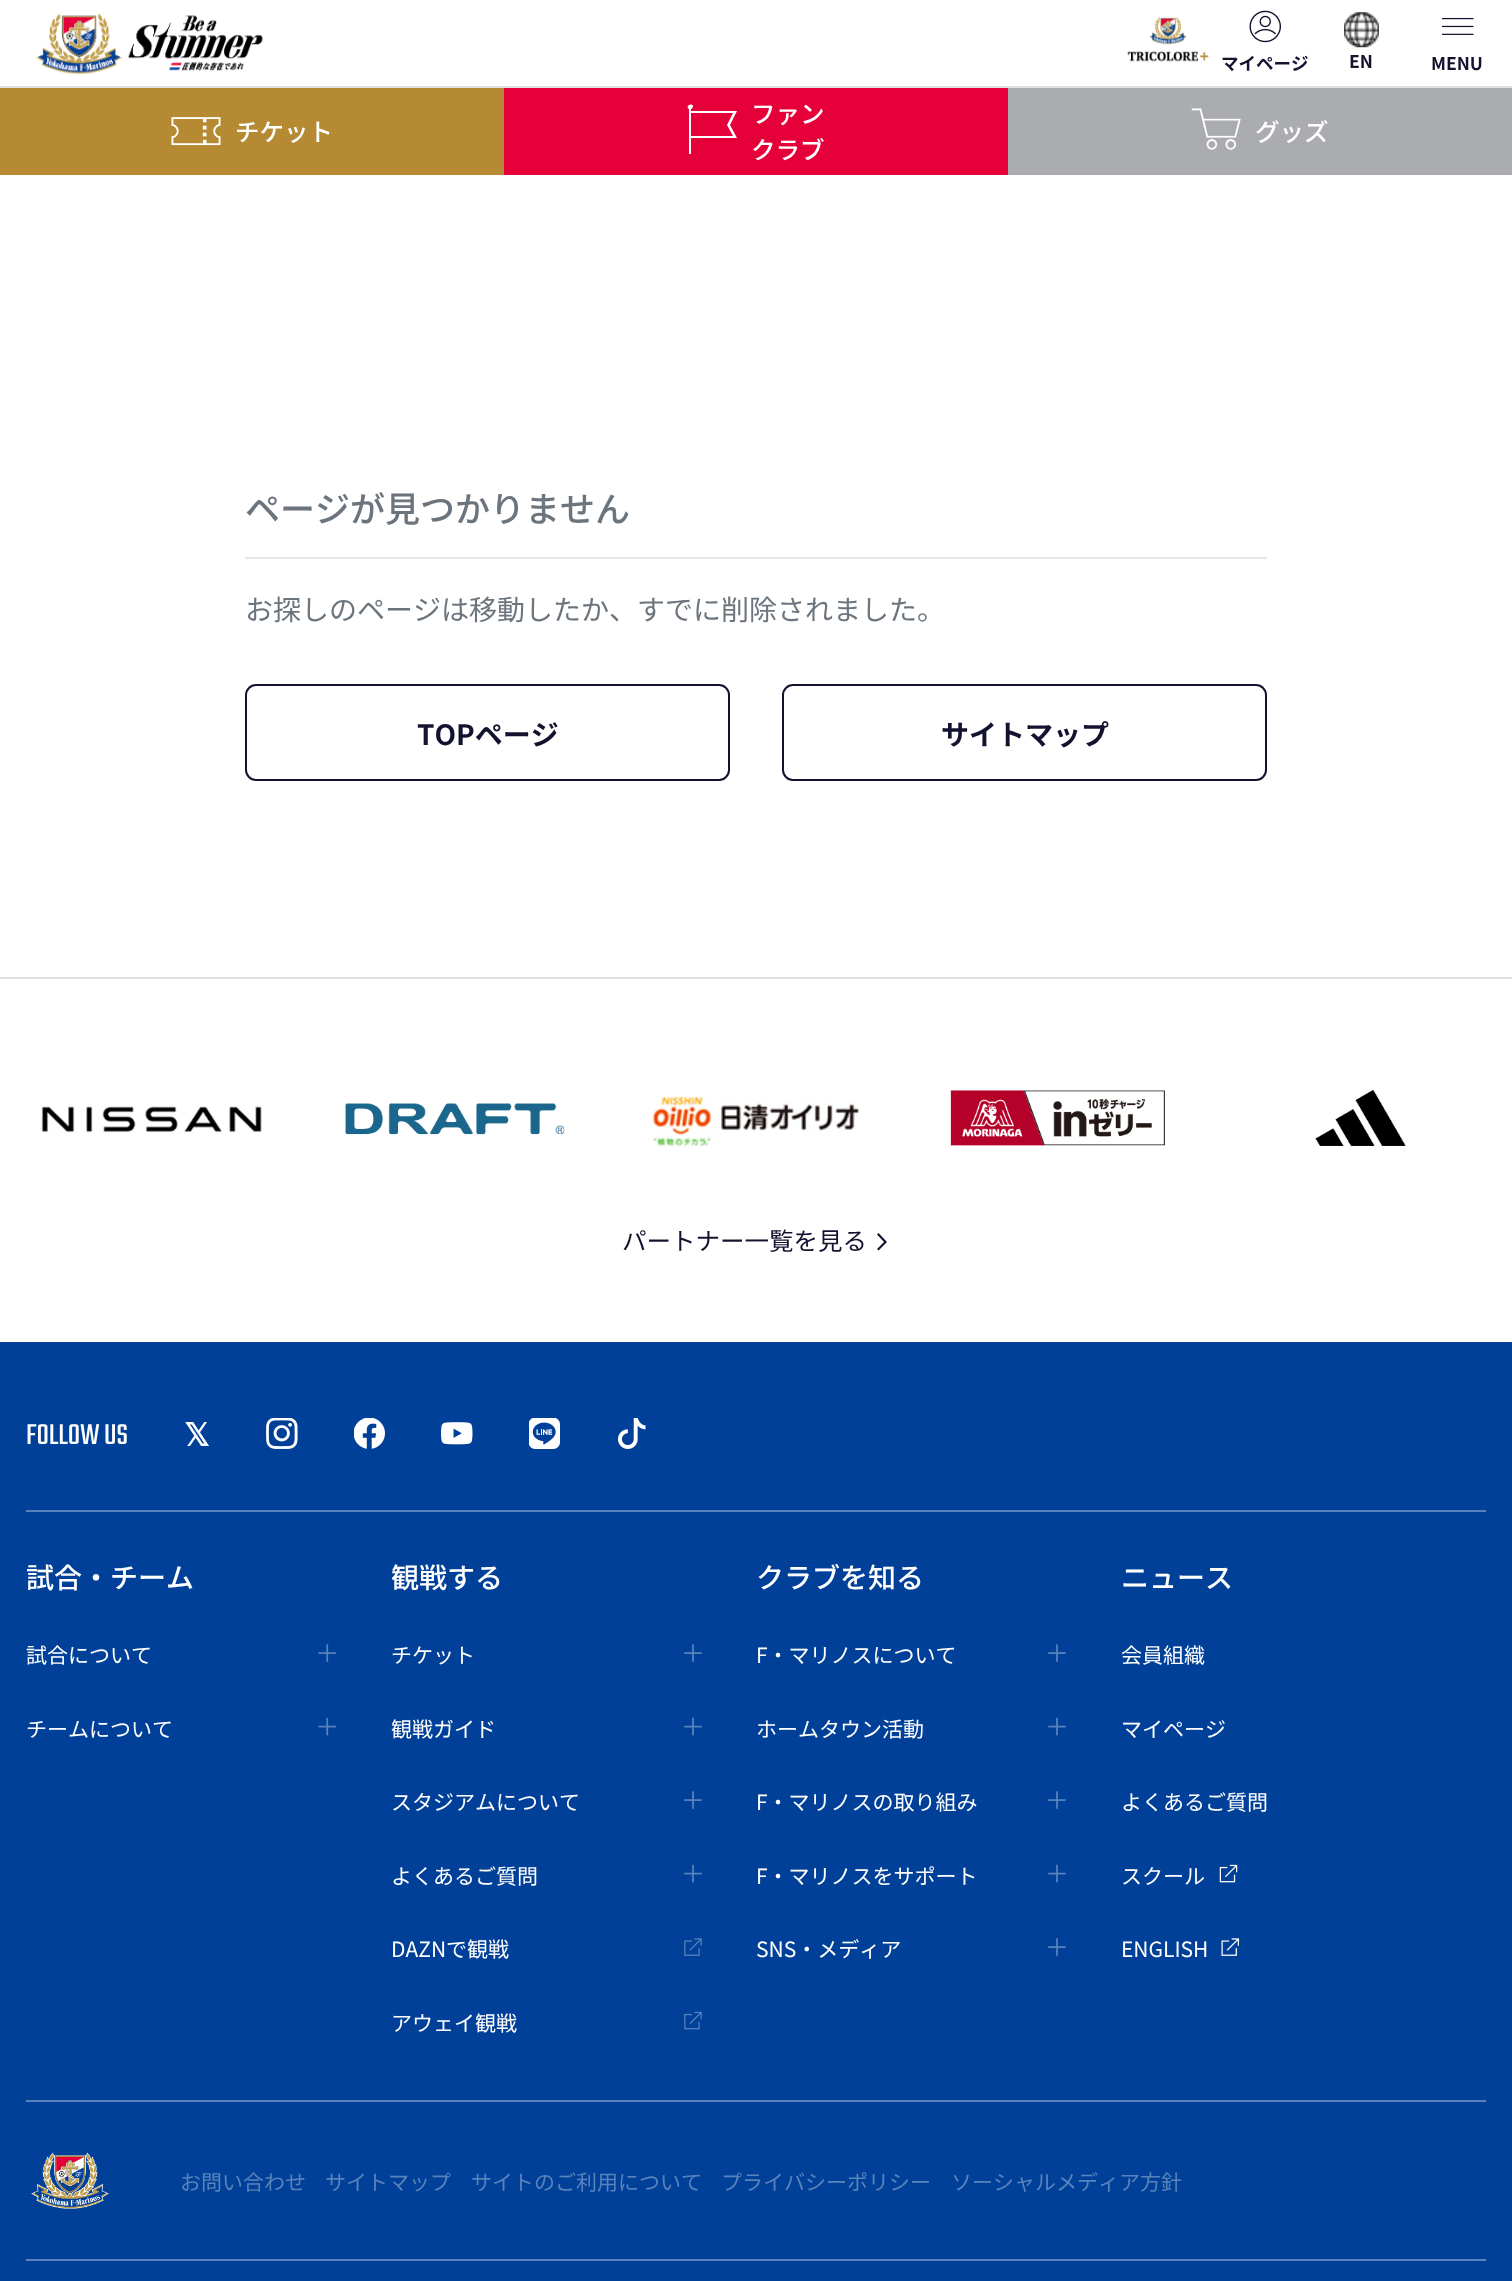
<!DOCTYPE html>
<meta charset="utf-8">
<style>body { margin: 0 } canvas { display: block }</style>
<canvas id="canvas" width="1512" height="2281"></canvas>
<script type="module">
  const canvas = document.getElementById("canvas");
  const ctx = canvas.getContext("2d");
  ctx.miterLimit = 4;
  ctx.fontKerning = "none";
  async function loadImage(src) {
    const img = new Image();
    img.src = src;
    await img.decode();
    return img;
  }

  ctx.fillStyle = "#ffffff";
  ctx.fillRect(0, 0, 1512, 2281);
  ctx.fillStyle = "#dfe1e5";
  ctx.fillRect(0, 86, 1512, 2);
  ctx.drawImage(await loadImage("img1.png"), 36, 13, 227, 62);
  ctx.drawImage(await loadImage("img2.png"), 1127, 17, 82, 45);
  ctx.drawImage(await loadImage("img3.png"), 1249, 10, 32, 33);
  ctx.font = "bold 17.5px Noto Sans JP";
  ctx.fillStyle = "#14132f";
  ctx.fillText("マイページ", 1221, 70);
  ctx.drawImage(await loadImage("img4.png"), 1344, 12, 35, 36);
  ctx.fillText("EN", 1349, 68);
  ctx.drawImage(await loadImage("img5.png"), 1442, 17, 32, 18);
  ctx.fillText("MENU", 1431, 70);
  ctx.fillStyle = "#b68933";
  ctx.fillRect(0, 88, 504, 87);
  ctx.drawImage(await loadImage("img6.png"), 171, 117, 50, 29);
  ctx.font = "500 24.5px Noto Sans JP";
  ctx.fillStyle = "#ffffff";
  ctx.fillText("チケット", 235, 141);
  ctx.fillStyle = "#e60039";
  ctx.fillRect(504, 88, 504, 87);
  ctx.fillStyle = "#ffffff";
  ctx.beginPath();
  ctx.moveTo(730, 125);
  ctx.lineTo(737, 111);
  ctx.lineTo(691, 111);
  ctx.lineTo(691, 109);
  ctx.bezierCurveTo(692, 109, 693, 107, 693, 106);
  ctx.bezierCurveTo(691, 102, 685, 107, 689, 109);
  ctx.lineTo(689, 154);
  ctx.lineTo(691, 154);
  ctx.lineTo(691, 138);
  ctx.lineTo(737, 138);
  ctx.closePath();
  ctx.moveTo(691, 136);
  ctx.lineTo(691, 113);
  ctx.lineTo(733, 113);
  ctx.lineTo(727, 125);
  ctx.lineTo(733, 136);
  ctx.closePath();
  ctx.fill();
  ctx.fillText("ファン", 751, 123);
  ctx.fillText("クラブ", 751, 159);
  ctx.fillStyle = "#aaacaf";
  ctx.fillRect(1008, 88, 504, 87);
  ctx.drawImage(await loadImage("img7.png"), 1191, 108, 50, 42);
  ctx.fillStyle = "#ffffff";
  ctx.fillText("グッズ", 1255, 141);
  ctx.font = "500 35px Noto Sans JP";
  ctx.fillStyle = "#6c757d";
  ctx.fillText("ページが見つかりません", 245, 522);
  ctx.fillStyle = "#e6e6e6";
  ctx.fillRect(245, 557, 1022, 2);
  ctx.font = "28px Noto Sans JP";
  ctx.fillStyle = "#6c757d";
  ctx.fillText("お探しのページは移動したか、すでに削除されました。", 245, 620);
  ctx.beginPath();
  ctx.roundRect(246, 685, 483, 95, 10);
  ctx.strokeStyle = "#14132f";
  ctx.lineWidth = 2;
  ctx.stroke();
  ctx.font = "bold 28px Noto Sans JP";
  ctx.fillStyle = "#14132f";
  ctx.fillText("TOPページ", 417, 745);
  ctx.beginPath();
  ctx.roundRect(783, 685, 483, 95, 10);
  ctx.stroke();
  ctx.fillText("サイトマップ", 941, 745);
  ctx.fillStyle = "#dfe1e5";
  ctx.fillRect(0, 977, 1512, 2);
  ctx.drawImage(await loadImage("img8.png"), 41, 1106, 221, 27);
  ctx.drawImage(await loadImage("img9.png"), 345, 1103, 220, 32);
  ctx.drawImage(await loadImage("img10.png"), 652, 1096, 208, 51);
  ctx.drawImage(await loadImage("img11.png"), 950, 1090, 215, 56);
  ctx.drawImage(await loadImage("img12.png"), 1315, 1090, 91, 56);
  ctx.font = "24.5px Noto Sans JP";
  ctx.fillStyle = "#14132f";
  ctx.fillText("パートナー一覧を見る", 622, 1250);
  ctx.beginPath();
  ctx.moveTo(877, 1234.5);
  ctx.lineTo(878.5, 1233);
  ctx.lineTo(887, 1242);
  ctx.lineTo(878.5, 1250.5);
  ctx.lineTo(877, 1249);
  ctx.lineTo(884, 1242);
  ctx.closePath();
  ctx.fill();
  ctx.fillStyle = "#004098";
  ctx.fillRect(0, 1342, 1512, 939);
  ctx.fillStyle = "#5983bc";
  ctx.fillRect(26, 1510, 1460, 2);
  ctx.font = "300 31.5px Teko";
  ctx.fillStyle = "#ffffff";
  ctx.fillText("FOLLOW US", 26, 1444);
  ctx.font = "bold 31.5px DejaVu Sans";
  ctx.fillText("𝕏", 184, 1446);
  ctx.drawImage(await loadImage("img13.png"), 266, 1418, 32, 31);
  ctx.drawImage(await loadImage("img14.png"), 354, 1418, 31, 31);
  ctx.drawImage(await loadImage("img15.png"), 441, 1422, 32, 23);
  ctx.drawImage(await loadImage("img16.png"), 529, 1418, 31, 31);
  ctx.drawImage(await loadImage("img17.png"), 618, 1418, 28, 31);
  ctx.fillStyle = "#5983bc";
  ctx.fillRect(26, 2100, 1460, 2);
  ctx.font = "500 28px Noto Sans JP";
  ctx.fillStyle = "#ffffff";
  ctx.fillText("試合・チーム", 26, 1588);
  ctx.font = "21px Noto Sans JP";
  ctx.fillText("試合について", 26, 1663);
  ctx.drawImage(await loadImage("img18.png"), 318, 1644, 18, 18);
  ctx.fillText("チームについて", 26, 1737);
  ctx.drawImage(await loadImage("img19.png"), 318, 1717, 18, 19);
  ctx.font = "500 28px Noto Sans JP";
  ctx.fillText("観戦する", 391, 1588);
  ctx.font = "21px Noto Sans JP";
  ctx.fillText("チケット", 391, 1663);
  ctx.drawImage(await loadImage("img20.png"), 684, 1644, 18, 18);
  ctx.fillText("観戦ガイド", 391, 1737);
  ctx.drawImage(await loadImage("img21.png"), 684, 1717, 18, 19);
  ctx.fillText("スタジアムについて", 391, 1810);
  ctx.drawImage(await loadImage("img20.png"), 684, 1791, 18, 18);
  ctx.fillText("よくあるご質問", 391, 1884);
  ctx.drawImage(await loadImage("img21.png"), 684, 1864, 18, 19);
  ctx.fillText("DAZNで観戦", 391, 1957);
  ctx.drawImage(await loadImage("img22.png"), 684, 1938, 18, 18);
  ctx.fillText("アウェイ観戦", 391, 2031);
  ctx.drawImage(await loadImage("img23.png"), 684, 2011, 18, 19);
  ctx.font = "500 28px Noto Sans JP";
  ctx.fillText("クラブを知る", 756, 1588);
  ctx.font = "21px Noto Sans JP";
  ctx.fillText("F・マリノスについて", 756, 1663);
  ctx.drawImage(await loadImage("img20.png"), 1048, 1644, 18, 18);
  ctx.fillText("ホームタウン活動", 756, 1737);
  ctx.drawImage(await loadImage("img21.png"), 1048, 1717, 18, 19);
  ctx.fillText("F・マリノスの取り組み", 756, 1810);
  ctx.drawImage(await loadImage("img20.png"), 1048, 1791, 18, 18);
  ctx.fillText("F・マリノスをサポート", 756, 1884);
  ctx.drawImage(await loadImage("img21.png"), 1048, 1864, 18, 19);
  ctx.fillText("SNS・メディア", 756, 1957);
  ctx.drawImage(await loadImage("img20.png"), 1048, 1938, 18, 18);
  ctx.font = "500 28px Noto Sans JP";
  ctx.fillText("ニュース", 1121, 1588);
  ctx.font = "21px Noto Sans JP";
  ctx.fillText("会員組織", 1121, 1663);
  ctx.fillText("マイページ", 1121, 1737);
  ctx.fillText("よくあるご質問", 1121, 1810);
  ctx.fillText("スクール", 1121, 1884);
  ctx.drawImage(await loadImage("img24.png"), 1219, 1864, 19, 19);
  ctx.fillText("ENGLISH", 1121, 1957);
  ctx.drawImage(await loadImage("img25.png"), 1221, 1938, 18, 18);
  ctx.fillStyle = "#5983bc";
  ctx.fillRect(26, 2259, 1460, 2);
  ctx.drawImage(await loadImage("img26.png"), 31, 2152, 78, 57);
  ctx.fillText("お問い合わせ", 180, 2190);
  ctx.fillText("サイトマップ", 325, 2190);
  ctx.fillText("サイトのご利用について", 471, 2190);
  ctx.fillText("プライバシーポリシー", 721, 2190);
  ctx.fillText("ソーシャルメディア方針", 951, 2190);
</script>
